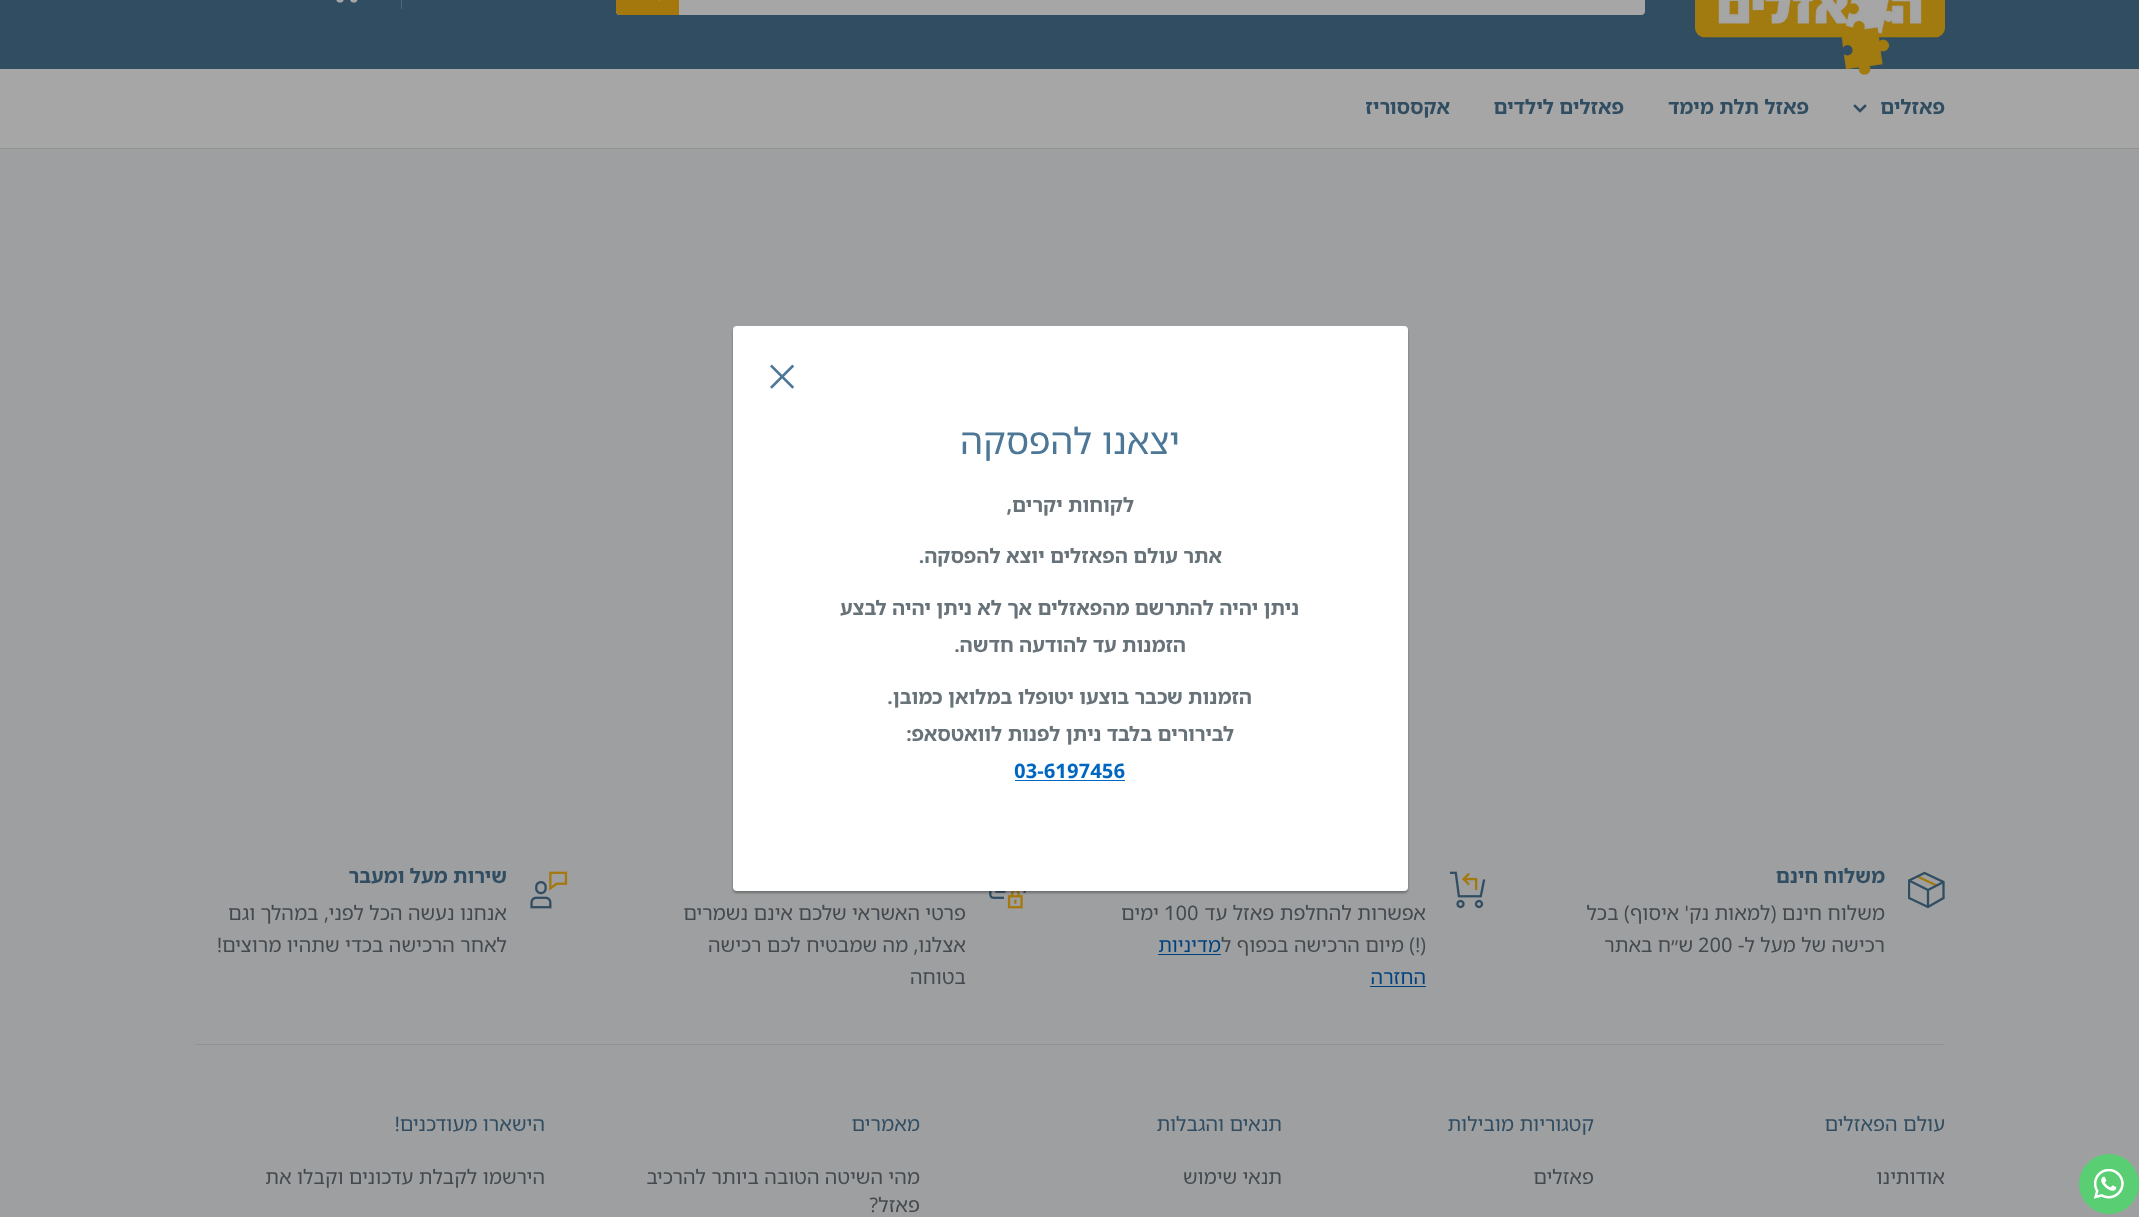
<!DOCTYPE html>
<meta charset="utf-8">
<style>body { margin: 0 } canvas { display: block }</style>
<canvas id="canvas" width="2139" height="1217"></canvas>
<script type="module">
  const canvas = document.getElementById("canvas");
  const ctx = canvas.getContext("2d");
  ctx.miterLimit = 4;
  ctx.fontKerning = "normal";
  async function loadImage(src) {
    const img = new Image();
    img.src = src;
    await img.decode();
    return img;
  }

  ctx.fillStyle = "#9e9fa0";
  ctx.fillRect(0, 0, 2139, 1217);
  ctx.fillStyle = "#314d62";
  ctx.fillRect(0, 0, 2139, 69);
  ctx.fillStyle = "#a6a6a6";
  ctx.fillRect(0, 69, 2139, 79);
  ctx.drawImage(await loadImage("img1.png"), 1695, 0, 250, 75);
  ctx.beginPath();
  ctx.roundRect(616, -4, 1029, 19, 4);
  ctx.fill();
  ctx.fillStyle = "#a4780c";
  ctx.beginPath();
  ctx.moveTo(620, -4);
  ctx.lineTo(679, -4);
  ctx.lineTo(679, 15);
  ctx.lineTo(620, 15);
  ctx.bezierCurveTo(618, 15, 616, 13, 616, 11);
  ctx.lineTo(616, 0);
  ctx.bezierCurveTo(616, -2, 618, -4, 620, -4);
  ctx.closePath();
  ctx.fill();
  ctx.beginPath();
  ctx.moveTo(659, -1);
  ctx.lineTo(652.5, -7.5);
  ctx.strokeStyle = "#a6a6a6";
  ctx.lineWidth = 2.5;
  ctx.lineCap = "square";
  ctx.stroke();
  ctx.fillStyle = "#526675";
  ctx.fillRect(401, 0, 1, 9);
  ctx.beginPath();
  ctx.arc(340, -1.2, 2.5, 0, Math.PI * 2);
  ctx.stroke();
  ctx.beginPath();
  ctx.arc(353.8, -1.2, 2.5, 0, Math.PI * 2);
  ctx.stroke();
  ctx.fillStyle = "#929494";
  ctx.fillRect(0, 148, 2139, 1);
  ctx.direction = "rtl";
  ctx.font = "bold 20px Noto Sans Hebrew";
  ctx.fillStyle = "#314d62";
  ctx.fillText("פאזלים", 1945, 114);
  ctx.beginPath();
  ctx.moveTo(1865, 106);
  ctx.lineTo(1860, 111);
  ctx.lineTo(1855, 106);
  ctx.strokeStyle = "#314d62";
  ctx.stroke();
  ctx.fillText("פאזל תלת מימד", 1809, 114);
  ctx.fillText("פאזלים לילדים", 1624, 114);
  ctx.fillText("אקססוריז", 1450, 114);
  ctx.drawImage(await loadImage("img4.png"), 989, 891, 37, 18);
  ctx.fillStyle = "rgba(0, 0, 0, 0.3)";
  ctx.filter = "blur(1px)";
  ctx.beginPath();
  ctx.roundRect(733, 328, 675, 565, 4);
  ctx.fill();
  ctx.filter = "none";
  ctx.fillStyle = "#ffffff";
  ctx.beginPath();
  ctx.roundRect(733, 326, 675, 565, 4);
  ctx.fill();
  ctx.drawImage(await loadImage("img2.png"), 770, 364, 25, 25);
  ctx.font = "36.25px Noto Sans Hebrew";
  ctx.fillStyle = "#4c7797";
  ctx.fillText("יצאנו להפסקה", 1180, 454);
  ctx.font = "bold 20px Noto Sans Hebrew";
  ctx.fillStyle = "#677279";
  ctx.fillText("לקוחות יקרים,", 1134, 512);
  ctx.fillText("אתר עולם הפאזלים יוצא להפסקה.", 1222, 563);
  ctx.fillText("ניתן יהיה להתרשם מהפאזלים אך לא ניתן יהיה לבצע", 1299, 615);
  ctx.fillText("הזמנות עד להודעה חדשה.", 1186, 652);
  ctx.fillText("הזמנות שכבר בוצעו יטופלו במלואן כמובן.", 1252, 704);
  ctx.fillText("לבירורים בלבד ניתן לפנות לוואטסאפ:", 1234, 741);
  ctx.direction = "ltr";
  ctx.fillStyle = "#0066c0";
  ctx.fillText("03-6197456", 1014, 778);
  ctx.fillRect(1015, 780, 110, 1);
  ctx.beginPath();
  ctx.moveTo(1917.5, 876.5);
  ctx.lineTo(1936.5, 885.5);
  ctx.strokeStyle = "#a4780c";
  ctx.lineWidth = 2.3;
  ctx.lineCap = "butt";
  ctx.stroke();
  ctx.beginPath();
  ctx.moveTo(1943.5, 882);
  ctx.lineTo(1928, 890);
  ctx.lineTo(1909, 880.5);
  ctx.moveTo(1928, 890);
  ctx.lineTo(1928, 907);
  ctx.strokeStyle = "#314d62";
  ctx.stroke();
  ctx.save();
  ctx.beginPath();
  ctx.rect(1908, 871, 37, 38);
  ctx.clip();
  ctx.beginPath();
  ctx.moveTo(1943.5, 882);
  ctx.lineTo(1943.5, 898);
  ctx.lineTo(1928, 907);
  ctx.lineTo(1909, 898);
  ctx.lineTo(1909, 880.5);
  ctx.lineTo(1924.5, 873);
  ctx.closePath();
  ctx.lineCap = "square";
  ctx.stroke();
  ctx.restore();
  ctx.direction = "rtl";
  ctx.fillStyle = "#314d62";
  ctx.fillText("משלוח חינם", 1885, 883);
  ctx.font = "20px Noto Sans Hebrew";
  ctx.fillStyle = "#434a4f";
  ctx.fillText("משלוח חינם (למאות נק' איסוף) בכל", 1885, 920);
  ctx.fillText("רכישה של מעל ל-", 1885, 952);
  ctx.direction = "ltr";
  ctx.fillText("200", 1698, 952);
  ctx.direction = "rtl";
  ctx.fillText("ש״ח באתר", 1693, 952);
  ctx.drawImage(await loadImage("img3.png"), 1449, 871, 37, 38);
  ctx.fillText("אפשרות להחלפת פאזל עד", 1426, 920);
  ctx.direction = "ltr";
  ctx.fillText("100", 1164, 920);
  ctx.direction = "rtl";
  ctx.fillText("ימים", 1159, 920);
  ctx.fillText("(!) מיום הרכישה בכפוף ל", 1426, 952);
  ctx.fillStyle = "#00427d";
  ctx.fillText("מדיניות", 1221, 952);
  ctx.fillRect(1158, 954, 63, 1);
  ctx.fillText("החזרה", 1426, 984);
  ctx.fillRect(1370, 986, 56, 1);
  ctx.fillStyle = "#434a4f";
  ctx.fillText("פרטי האשראי שלכם אינם נשמרים", 966, 920);
  ctx.fillText("אצלנו, מה שמבטיח לכם רכישה", 966, 952);
  ctx.fillText("בטוחה", 966, 984);
  ctx.drawImage(await loadImage("img5.png"), 530, 871, 38, 38);
  ctx.font = "bold 20px Noto Sans Hebrew";
  ctx.fillStyle = "#314d62";
  ctx.fillText("שירות מעל ומעבר", 507, 883);
  ctx.font = "20px Noto Sans Hebrew";
  ctx.fillStyle = "#434a4f";
  ctx.fillText("אנחנו נעשה הכל לפני, במהלך וגם", 507, 920);
  ctx.fillText("לאחר הרכישה בכדי שתהיו מרוצים!", 507, 952);
  ctx.fillStyle = "#59ce72";
  ctx.beginPath();
  ctx.arc(2109, 1184, 30, 0, Math.PI * 2);
  ctx.fill();
  ctx.drawImage(await loadImage("img6.png"), 2094, 1169, 30, 30);
  ctx.fillStyle = "#929494";
  ctx.fillRect(195, 1044, 1750, 1);
  ctx.fillStyle = "#314d62";
  ctx.fillText("עולם הפאזלים", 1945, 1131);
  ctx.fillStyle = "#434a4f";
  ctx.fillText("אודותינו", 1945, 1184);
  ctx.fillStyle = "#314d62";
  ctx.fillText("קטגוריות מובילות", 1594, 1131);
  ctx.fillStyle = "#434a4f";
  ctx.fillText("פאזלים", 1594, 1184);
  ctx.fillStyle = "#314d62";
  ctx.fillText("תנאים והגבלות", 1282, 1131);
  ctx.fillStyle = "#434a4f";
  ctx.fillText("תנאי שימוש", 1282, 1184);
  ctx.fillStyle = "#314d62";
  ctx.fillText("מאמרים", 920, 1131);
  ctx.fillStyle = "#434a4f";
  ctx.fillText("מהי השיטה הטובה ביותר להרכיב", 920, 1184);
  ctx.fillText("פאזל?", 920, 1212);
  ctx.fillStyle = "#314d62";
  ctx.fillText("הישארו מעודכנים!", 545, 1131);
  ctx.fillStyle = "#434a4f";
  ctx.fillText("הירשמו לקבלת עדכונים וקבלו את", 545, 1184);
</script>
